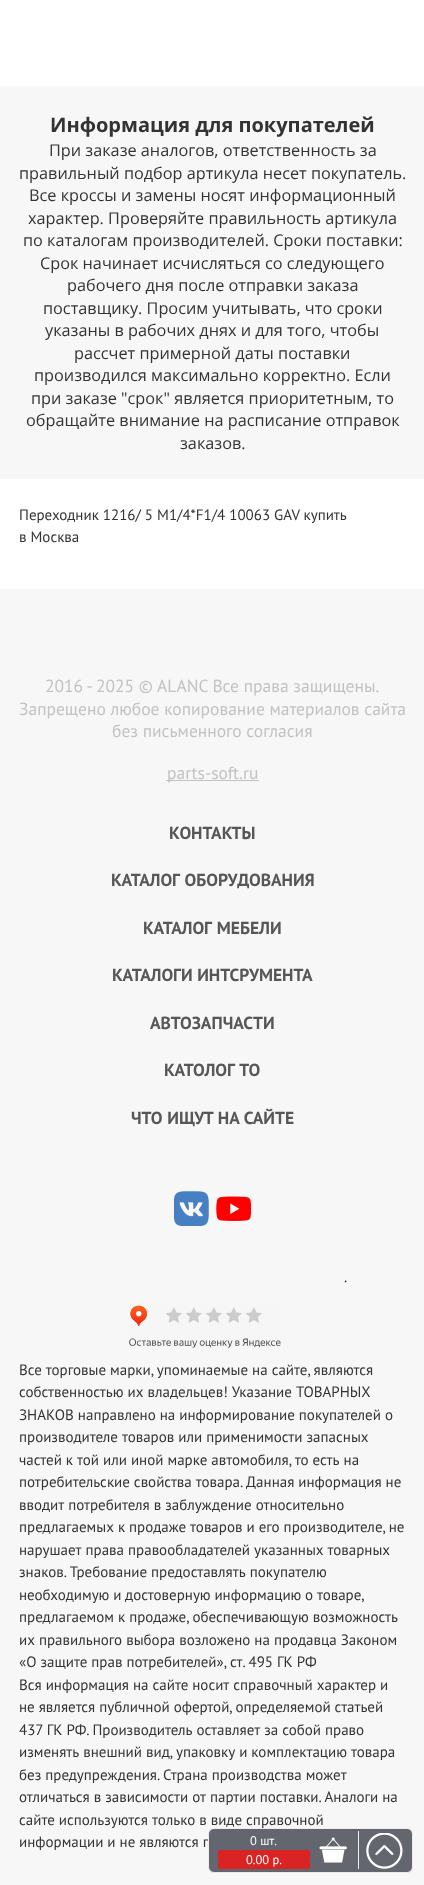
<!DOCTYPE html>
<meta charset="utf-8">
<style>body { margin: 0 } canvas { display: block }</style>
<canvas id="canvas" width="424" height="1885"></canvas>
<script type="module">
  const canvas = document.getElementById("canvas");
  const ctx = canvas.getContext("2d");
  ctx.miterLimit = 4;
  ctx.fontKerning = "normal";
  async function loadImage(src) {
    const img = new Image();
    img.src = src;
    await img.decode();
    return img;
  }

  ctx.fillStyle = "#ffffff";
  ctx.fillRect(0, 0, 424, 1885);
  ctx.fillStyle = "#f7f7f7";
  ctx.fillRect(0, 86, 424, 393);
  ctx.font = "bold 20px Open Sans";
  ctx.fillStyle = "#333333";
  ctx.fillText("Информация для покупателей", 50, 132);
  ctx.font = "16.25px Open Sans";
  ctx.fillText("При заказе аналогов, ответственность за", 49, 156);
  ctx.fillText("правильный подбор артикула несет покупатель.", 19, 179);
  ctx.fillText("Все кроссы и замены носят информационный", 29, 201);
  ctx.fillText("характер. Проверяйте правильность артикула", 28, 224);
  ctx.fillText("по каталогам производителей. Сроки поставки:", 23, 246);
  ctx.fillText("Cрок начинает исчисляться со следующего", 40, 269);
  ctx.fillText("рабочего дня после отправки заказа", 67, 291);
  ctx.fillText("поставщику. Просим учитывать, что сроки", 43, 314);
  ctx.fillText("указаны в рабочих днях и для того, чтобы", 45, 336);
  ctx.fillText("рассчет примерной даты поставки", 74, 359);
  ctx.fillText("производился максимально корректно. Если", 34, 381);
  ctx.fillText("при заказе \"срок\" является приоритетным, то", 31, 404);
  ctx.fillText("обращайте внимание на расписание отправок", 26, 426);
  ctx.fillText("заказов.", 180, 449);
  ctx.font = "15px PT Sans";
  ctx.fillText("Переходник 1216/ 5 М1/4*F1/4 10063 GAV купить", 19, 520);
  ctx.fillText("в Москва", 19, 542);
  ctx.fillStyle = "#f7f7f7";
  ctx.fillRect(0, 589, 424, 1296);
  ctx.font = "17.5px PT Sans";
  ctx.fillStyle = "#c2c2c2";
  ctx.fillText("2016 - 2025 © ALANC Все права защищены.", 45, 692);
  ctx.fillText("Запрещено любое копирование материалов сайта", 19, 715);
  ctx.fillText("без письменного согласия", 112, 737);
  ctx.fillRect(166, 780, 93, 1);
  ctx.fillText("parts-soft.ru", 167, 779);
  ctx.font = "bold 17.5px PT Sans";
  ctx.fillStyle = "#575757";
  ctx.fillText("КОНТАКТЫ", 169, 839);
  ctx.wordSpacing = "1px";
  ctx.fillText("КАТАЛОГ ОБОРУДОВАНИЯ", 111, 886);
  ctx.fillText("КАТАЛОГ МЕБЕЛИ", 143, 934);
  ctx.wordSpacing = "0px";
  ctx.fillText("КАТАЛОГИ ИНТСРУМЕНТА", 112, 981);
  ctx.fillText("АВТОЗАПЧАСТИ", 150, 1029);
  ctx.wordSpacing = "1px";
  ctx.fillText("КАТОЛОГ ТО", 164, 1076);
  ctx.wordSpacing = "0.5px";
  ctx.fillText("ЧТО ИЩУТ НА САЙТЕ", 131, 1124);
  ctx.drawImage(await loadImage("img1.png"), 174, 1191, 35, 35);
  ctx.drawImage(await loadImage("img2.png"), 216, 1196, 35, 25);
  ctx.wordSpacing = "0px";
  ctx.font = "15px PT Sans";
  ctx.fillStyle = "#333333";
  ctx.fillText(".", 344, 1282);
  ctx.drawImage(await loadImage("img3.png"), 129, 1305, 152, 43);
  ctx.fillText("Все торговые марки, упоминаемые на сайте, являются", 19, 1375);
  ctx.fillText("собственностью их владельцев! Указание ТОВАРНЫХ", 19, 1397);
  ctx.fillText("ЗНАКОВ направлено на информирование покупателей о", 19, 1420);
  ctx.fillText("производителе товаров или применимости запасных", 19, 1442);
  ctx.fillText("частей к той или иной марке автомобиля, то есть на", 19, 1465);
  ctx.fillText("потребительские свойства товара. Данная информация не", 19, 1487);
  ctx.fillText("вводит потребителя в заблуждение относительно", 19, 1510);
  ctx.fillText("предлагаемых к продаже товаров и его производителе, не", 19, 1532);
  ctx.fillText("нарушает права правообладателей указанных товарных", 19, 1555);
  ctx.fillText("знаков. Требование предоставлять покупателю", 19, 1577);
  ctx.wordSpacing = "-0.25px";
  ctx.fillText("необходимую и достоверную информацию о товаре,", 19, 1600);
  ctx.wordSpacing = "0px";
  ctx.fillText("предлагаемом к продаже, обеспечивающую возможность", 19, 1622);
  ctx.fillText("их правильного выбора возложено на продавца Законом", 19, 1645);
  ctx.fillText("«О защите прав потребителей», ст. 495 ГК РФ", 19, 1667);
  ctx.fillText("Вся информация на сайте носит справочный характер и", 19, 1690);
  ctx.fillText("не является публичной офертой, определяемой статьей", 19, 1712);
  ctx.fillText("437 ГК РФ. Производитель оставляет за собой право", 19, 1735);
  ctx.fillText("изменять внешний вид, упаковку и комплектацию товара", 19, 1757);
  ctx.fillText("без предупреждения. Страна производства может", 19, 1780);
  ctx.fillText("отличаться в зависимости от партии поставки. Аналоги на", 19, 1802);
  ctx.fillText("сайте используются только в виде справочной", 19, 1825);
  ctx.fillText("информации и не являются п", 19, 1847);
  ctx.fillStyle = "#64666f";
  ctx.beginPath();
  ctx.roundRect(208.5, 1828.5, 204, 44, 5.5);
  ctx.fill();
  ctx.strokeStyle = "#ececec";
  ctx.stroke();
  ctx.drawImage(await loadImage("img4.png"), 319, 1837, 28, 26);
  ctx.font = "12.5px PT Sans";
  ctx.fillStyle = "#ffffff";
  ctx.fillText("0 шт.", 250, 1845);
  ctx.fillStyle = "#da2424";
  ctx.beginPath();
  ctx.roundRect(218, 1850, 92, 19, 2.5);
  ctx.fill();
  ctx.fillStyle = "#ffffff";
  ctx.fillText("0.00 р.", 246, 1864);
  ctx.fillStyle = "#ececec";
  ctx.fillRect(358, 1831, 1, 38);
  ctx.drawImage(await loadImage("img5.png"), 366, 1833, 37, 36);
</script>
